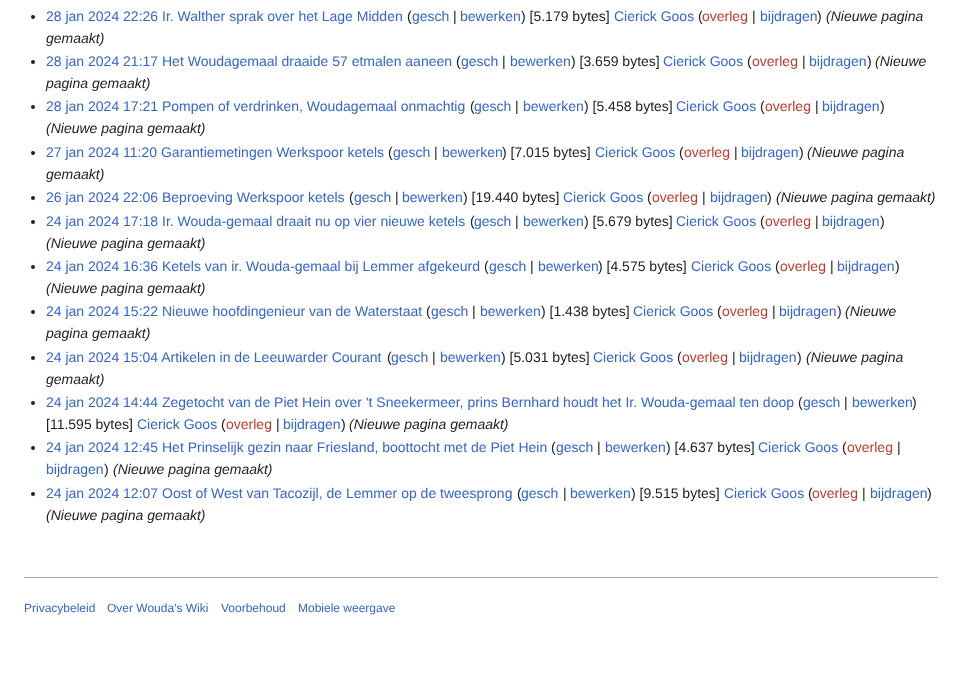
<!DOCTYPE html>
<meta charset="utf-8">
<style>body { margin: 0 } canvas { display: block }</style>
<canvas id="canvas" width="962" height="684"></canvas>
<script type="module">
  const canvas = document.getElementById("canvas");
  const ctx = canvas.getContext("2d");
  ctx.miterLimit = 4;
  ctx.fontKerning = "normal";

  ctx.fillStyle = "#ffffff";
  ctx.fillRect(0, 0, 962, 684);
  ctx.fillStyle = "#202122";
  ctx.beginPath();
  ctx.arc(33, 17, 2, 0, Math.PI * 2);
  ctx.fill();
  ctx.font = "14px Liberation Sans";
  ctx.fillStyle = "#3366cc";
  ctx.fillText("28 jan 2024 22:26 Ir. Walther sprak over het Lage Midden", 46, 21);
  ctx.fillStyle = "#202122";
  ctx.fillText("(", 407, 21);
  ctx.fillStyle = "#3366cc";
  ctx.fillText("gesch", 412, 21);
  ctx.fillStyle = "#202122";
  ctx.fillText("|", 453, 21);
  ctx.fillStyle = "#3366cc";
  ctx.fillText("bewerken", 460, 21);
  ctx.fillStyle = "#202122";
  ctx.fillText(") [5.179 bytes]", 521, 21);
  ctx.fillStyle = "#3366cc";
  ctx.fillText("Cierick Goos", 614, 21);
  ctx.fillStyle = "#202122";
  ctx.fillText("(", 698, 21);
  ctx.fillStyle = "#bf3c2c";
  ctx.fillText("overleg", 702, 21);
  ctx.fillStyle = "#202122";
  ctx.fillText("|", 752, 21);
  ctx.fillStyle = "#3366cc";
  ctx.fillText("bijdragen", 760, 21);
  ctx.fillStyle = "#202122";
  ctx.fillText(")", 817, 21);
  ctx.font = "italic 14px Liberation Sans";
  ctx.fillText("(Nieuwe pagina", 826, 21);
  ctx.fillText("gemaakt)", 46, 43);
  ctx.beginPath();
  ctx.arc(33, 62, 2, 0, Math.PI * 2);
  ctx.fill();
  ctx.font = "14px Liberation Sans";
  ctx.fillStyle = "#3366cc";
  ctx.fillText("28 jan 2024 21:17 Het Woudagemaal draaide 57 etmalen aaneen", 46, 66);
  ctx.fillStyle = "#202122";
  ctx.fillText("(", 456, 66);
  ctx.fillStyle = "#3366cc";
  ctx.fillText("gesch", 461, 66);
  ctx.fillStyle = "#202122";
  ctx.fillText("|", 502, 66);
  ctx.fillStyle = "#3366cc";
  ctx.fillText("bewerken", 510, 66);
  ctx.fillStyle = "#202122";
  ctx.fillText(") [3.659 bytes]", 571, 66);
  ctx.fillStyle = "#3366cc";
  ctx.fillText("Cierick Goos", 663, 66);
  ctx.fillStyle = "#202122";
  ctx.fillText("(", 747, 66);
  ctx.fillStyle = "#bf3c2c";
  ctx.fillText("overleg", 752, 66);
  ctx.fillStyle = "#202122";
  ctx.fillText("|", 802, 66);
  ctx.fillStyle = "#3366cc";
  ctx.fillText("bijdragen", 809, 66);
  ctx.fillStyle = "#202122";
  ctx.fillText(")", 867, 66);
  ctx.font = "italic 14px Liberation Sans";
  ctx.fillText("(Nieuwe", 875, 66);
  ctx.fillText("pagina gemaakt)", 46, 88);
  ctx.beginPath();
  ctx.arc(33, 107, 2, 0, Math.PI * 2);
  ctx.fill();
  ctx.font = "14px Liberation Sans";
  ctx.fillStyle = "#3366cc";
  ctx.fillText("28 jan 2024 17:21 Pompen of verdrinken, Woudagemaal onmachtig", 46, 111);
  ctx.fillStyle = "#202122";
  ctx.fillText("(", 470, 111);
  ctx.fillStyle = "#3366cc";
  ctx.fillText("gesch", 474, 111);
  ctx.fillStyle = "#202122";
  ctx.fillText("|", 515, 111);
  ctx.fillStyle = "#3366cc";
  ctx.fillText("bewerken", 523, 111);
  ctx.fillStyle = "#202122";
  ctx.fillText(") [5.458 bytes]", 584, 111);
  ctx.fillStyle = "#3366cc";
  ctx.fillText("Cierick Goos", 676, 111);
  ctx.fillStyle = "#202122";
  ctx.fillText("(", 760, 111);
  ctx.fillStyle = "#bf3c2c";
  ctx.fillText("overleg", 765, 111);
  ctx.fillStyle = "#202122";
  ctx.fillText("|", 815, 111);
  ctx.fillStyle = "#3366cc";
  ctx.fillText("bijdragen", 822, 111);
  ctx.fillStyle = "#202122";
  ctx.fillText(")", 880, 111);
  ctx.font = "italic 14px Liberation Sans";
  ctx.fillText("(Nieuwe pagina gemaakt)", 46, 133);
  ctx.beginPath();
  ctx.arc(33, 153, 2, 0, Math.PI * 2);
  ctx.fill();
  ctx.font = "14px Liberation Sans";
  ctx.fillStyle = "#3366cc";
  ctx.fillText("27 jan 2024 11:20 Garantiemetingen Werkspoor ketels", 46, 157);
  ctx.fillStyle = "#202122";
  ctx.fillText("(", 388, 157);
  ctx.fillStyle = "#3366cc";
  ctx.fillText("gesch", 393, 157);
  ctx.fillStyle = "#202122";
  ctx.fillText("|", 434, 157);
  ctx.fillStyle = "#3366cc";
  ctx.fillText("bewerken", 442, 157);
  ctx.fillStyle = "#202122";
  ctx.fillText(") [7.015 bytes]", 502, 157);
  ctx.fillStyle = "#3366cc";
  ctx.fillText("Cierick Goos", 595, 157);
  ctx.fillStyle = "#202122";
  ctx.fillText("(", 679, 157);
  ctx.fillStyle = "#bf3c2c";
  ctx.fillText("overleg", 684, 157);
  ctx.fillStyle = "#202122";
  ctx.fillText("|", 734, 157);
  ctx.fillStyle = "#3366cc";
  ctx.fillText("bijdragen", 741, 157);
  ctx.fillStyle = "#202122";
  ctx.fillText(")", 799, 157);
  ctx.font = "italic 14px Liberation Sans";
  ctx.fillText("(Nieuwe pagina", 807, 157);
  ctx.fillText("gemaakt)", 46, 179);
  ctx.beginPath();
  ctx.arc(33, 198, 2, 0, Math.PI * 2);
  ctx.fill();
  ctx.font = "14px Liberation Sans";
  ctx.fillStyle = "#3366cc";
  ctx.fillText("26 jan 2024 22:06 Beproeving Werkspoor ketels", 46, 202);
  ctx.fillStyle = "#202122";
  ctx.fillText("(", 349, 202);
  ctx.fillStyle = "#3366cc";
  ctx.fillText("gesch", 354, 202);
  ctx.fillStyle = "#202122";
  ctx.fillText("|", 395, 202);
  ctx.fillStyle = "#3366cc";
  ctx.fillText("bewerken", 402, 202);
  ctx.fillStyle = "#202122";
  ctx.fillText(") [19.440 bytes]", 463, 202);
  ctx.fillStyle = "#3366cc";
  ctx.fillText("Cierick Goos", 563, 202);
  ctx.fillStyle = "#202122";
  ctx.fillText("(", 647, 202);
  ctx.fillStyle = "#bf3c2c";
  ctx.fillText("overleg", 652, 202);
  ctx.fillStyle = "#202122";
  ctx.fillText("|", 702, 202);
  ctx.fillStyle = "#3366cc";
  ctx.fillText("bijdragen", 710, 202);
  ctx.fillStyle = "#202122";
  ctx.fillText(")", 767, 202);
  ctx.font = "italic 14px Liberation Sans";
  ctx.fillText("(Nieuwe pagina gemaakt)", 776, 202);
  ctx.beginPath();
  ctx.arc(33, 222, 2, 0, Math.PI * 2);
  ctx.fill();
  ctx.font = "14px Liberation Sans";
  ctx.fillStyle = "#3366cc";
  ctx.fillText("24 jan 2024 17:18 Ir. Wouda-gemaal draait nu op vier nieuwe ketels", 46, 226);
  ctx.fillStyle = "#202122";
  ctx.fillText("(", 470, 226);
  ctx.fillStyle = "#3366cc";
  ctx.fillText("gesch", 474, 226);
  ctx.fillStyle = "#202122";
  ctx.fillText("|", 515, 226);
  ctx.fillStyle = "#3366cc";
  ctx.fillText("bewerken", 523, 226);
  ctx.fillStyle = "#202122";
  ctx.fillText(") [5.679 bytes]", 584, 226);
  ctx.fillStyle = "#3366cc";
  ctx.fillText("Cierick Goos", 676, 226);
  ctx.fillStyle = "#202122";
  ctx.fillText("(", 760, 226);
  ctx.fillStyle = "#bf3c2c";
  ctx.fillText("overleg", 765, 226);
  ctx.fillStyle = "#202122";
  ctx.fillText("|", 815, 226);
  ctx.fillStyle = "#3366cc";
  ctx.fillText("bijdragen", 822, 226);
  ctx.fillStyle = "#202122";
  ctx.fillText(")", 880, 226);
  ctx.font = "italic 14px Liberation Sans";
  ctx.fillText("(Nieuwe pagina gemaakt)", 46, 248);
  ctx.beginPath();
  ctx.arc(33, 267, 2, 0, Math.PI * 2);
  ctx.fill();
  ctx.font = "14px Liberation Sans";
  ctx.fillStyle = "#3366cc";
  ctx.fillText("24 jan 2024 16:36 Ketels van ir. Wouda-gemaal bij Lemmer afgekeurd", 46, 271);
  ctx.fillStyle = "#202122";
  ctx.fillText("(", 484, 271);
  ctx.fillStyle = "#3366cc";
  ctx.fillText("gesch", 489, 271);
  ctx.fillStyle = "#202122";
  ctx.fillText("|", 530, 271);
  ctx.fillStyle = "#3366cc";
  ctx.fillText("bewerken", 538, 271);
  ctx.fillStyle = "#202122";
  ctx.fillText(") [4.575 bytes]", 598, 271);
  ctx.fillStyle = "#3366cc";
  ctx.fillText("Cierick Goos", 691, 271);
  ctx.fillStyle = "#202122";
  ctx.fillText("(", 775, 271);
  ctx.fillStyle = "#bf3c2c";
  ctx.fillText("overleg", 780, 271);
  ctx.fillStyle = "#202122";
  ctx.fillText("|", 830, 271);
  ctx.fillStyle = "#3366cc";
  ctx.fillText("bijdragen", 837, 271);
  ctx.fillStyle = "#202122";
  ctx.fillText(")", 895, 271);
  ctx.font = "italic 14px Liberation Sans";
  ctx.fillText("(Nieuwe pagina gemaakt)", 46, 293);
  ctx.beginPath();
  ctx.arc(33, 312, 2, 0, Math.PI * 2);
  ctx.fill();
  ctx.font = "14px Liberation Sans";
  ctx.fillStyle = "#3366cc";
  ctx.fillText("24 jan 2024 15:22 Nieuwe hoofdingenieur van de Waterstaat", 46, 316);
  ctx.fillStyle = "#202122";
  ctx.fillText("(", 426, 316);
  ctx.fillStyle = "#3366cc";
  ctx.fillText("gesch", 431, 316);
  ctx.fillStyle = "#202122";
  ctx.fillText("|", 472, 316);
  ctx.fillStyle = "#3366cc";
  ctx.fillText("bewerken", 480, 316);
  ctx.fillStyle = "#202122";
  ctx.fillText(") [1.438 bytes]", 541, 316);
  ctx.fillStyle = "#3366cc";
  ctx.fillText("Cierick Goos", 633, 316);
  ctx.fillStyle = "#202122";
  ctx.fillText("(", 717, 316);
  ctx.fillStyle = "#bf3c2c";
  ctx.fillText("overleg", 722, 316);
  ctx.fillStyle = "#202122";
  ctx.fillText("|", 772, 316);
  ctx.fillStyle = "#3366cc";
  ctx.fillText("bijdragen", 779, 316);
  ctx.fillStyle = "#202122";
  ctx.fillText(")", 837, 316);
  ctx.font = "italic 14px Liberation Sans";
  ctx.fillText("(Nieuwe", 845, 316);
  ctx.fillText("pagina gemaakt)", 46, 338);
  ctx.beginPath();
  ctx.arc(33, 358, 2, 0, Math.PI * 2);
  ctx.fill();
  ctx.font = "14px Liberation Sans";
  ctx.fillStyle = "#3366cc";
  ctx.fillText("24 jan 2024 15:04 Artikelen in de Leeuwarder Courant", 46, 362);
  ctx.fillStyle = "#202122";
  ctx.fillText("(", 387, 362);
  ctx.fillStyle = "#3366cc";
  ctx.fillText("gesch", 391, 362);
  ctx.fillStyle = "#202122";
  ctx.fillText("|", 432, 362);
  ctx.fillStyle = "#3366cc";
  ctx.fillText("bewerken", 440, 362);
  ctx.fillStyle = "#202122";
  ctx.fillText(") [5.031 bytes]", 501, 362);
  ctx.fillStyle = "#3366cc";
  ctx.fillText("Cierick Goos", 593, 362);
  ctx.fillStyle = "#202122";
  ctx.fillText("(", 677, 362);
  ctx.fillStyle = "#bf3c2c";
  ctx.fillText("overleg", 682, 362);
  ctx.fillStyle = "#202122";
  ctx.fillText("|", 732, 362);
  ctx.fillStyle = "#3366cc";
  ctx.fillText("bijdragen", 739, 362);
  ctx.fillStyle = "#202122";
  ctx.fillText(")", 797, 362);
  ctx.font = "italic 14px Liberation Sans";
  ctx.fillText("(Nieuwe pagina", 806, 362);
  ctx.fillText("gemaakt)", 46, 384);
  ctx.beginPath();
  ctx.arc(33, 403, 2, 0, Math.PI * 2);
  ctx.fill();
  ctx.font = "14px Liberation Sans";
  ctx.fillStyle = "#3366cc";
  ctx.fillText("24 jan 2024 14:44 Zegetocht van de Piet Hein over 't Sneekermeer, prins Bernhard houdt het Ir. Wouda-gemaal ten doop", 46, 407);
  ctx.fillStyle = "#202122";
  ctx.fillText("(", 798, 407);
  ctx.fillStyle = "#3366cc";
  ctx.fillText("gesch", 803, 407);
  ctx.fillStyle = "#202122";
  ctx.fillText("|", 844, 407);
  ctx.fillStyle = "#3366cc";
  ctx.fillText("bewerken", 852, 407);
  ctx.fillStyle = "#202122";
  ctx.fillText(")", 912, 407);
  ctx.fillText("[11.595 bytes]", 46, 429);
  ctx.fillStyle = "#3366cc";
  ctx.fillText("Cierick Goos", 137, 429);
  ctx.fillStyle = "#202122";
  ctx.fillText("(", 221, 429);
  ctx.fillStyle = "#bf3c2c";
  ctx.fillText("overleg", 226, 429);
  ctx.fillStyle = "#202122";
  ctx.fillText("|", 276, 429);
  ctx.fillStyle = "#3366cc";
  ctx.fillText("bijdragen", 283, 429);
  ctx.fillStyle = "#202122";
  ctx.fillText(")", 341, 429);
  ctx.font = "italic 14px Liberation Sans";
  ctx.fillText("(Nieuwe pagina gemaakt)", 349, 429);
  ctx.beginPath();
  ctx.arc(33, 448, 2, 0, Math.PI * 2);
  ctx.fill();
  ctx.font = "14px Liberation Sans";
  ctx.fillStyle = "#3366cc";
  ctx.fillText("24 jan 2024 12:45 Het Prinselijk gezin naar Friesland, boottocht met de Piet Hein", 46, 452);
  ctx.fillStyle = "#202122";
  ctx.fillText("(", 551, 452);
  ctx.fillStyle = "#3366cc";
  ctx.fillText("gesch", 556, 452);
  ctx.fillStyle = "#202122";
  ctx.fillText("|", 597, 452);
  ctx.fillStyle = "#3366cc";
  ctx.fillText("bewerken", 605, 452);
  ctx.fillStyle = "#202122";
  ctx.fillText(") [4.637 bytes]", 666, 452);
  ctx.fillStyle = "#3366cc";
  ctx.fillText("Cierick Goos", 758, 452);
  ctx.fillStyle = "#202122";
  ctx.fillText("(", 842, 452);
  ctx.fillStyle = "#bf3c2c";
  ctx.fillText("overleg", 847, 452);
  ctx.fillStyle = "#202122";
  ctx.fillText("|", 897, 452);
  ctx.fillStyle = "#3366cc";
  ctx.fillText("bijdragen", 46, 474);
  ctx.fillStyle = "#202122";
  ctx.fillText(")", 104, 474);
  ctx.font = "italic 14px Liberation Sans";
  ctx.fillText("(Nieuwe pagina gemaakt)", 113, 474);
  ctx.beginPath();
  ctx.arc(33, 494, 2, 0, Math.PI * 2);
  ctx.fill();
  ctx.font = "14px Liberation Sans";
  ctx.fillStyle = "#3366cc";
  ctx.fillText("24 jan 2024 12:07 Oost of West van Tacozijl, de Lemmer op de tweesprong", 46, 498);
  ctx.fillStyle = "#202122";
  ctx.fillText("(", 517, 498);
  ctx.fillStyle = "#3366cc";
  ctx.fillText("gesch", 521, 498);
  ctx.fillStyle = "#202122";
  ctx.fillText("|", 563, 498);
  ctx.fillStyle = "#3366cc";
  ctx.fillText("bewerken", 570, 498);
  ctx.fillStyle = "#202122";
  ctx.fillText(") [9.515 bytes]", 631, 498);
  ctx.fillStyle = "#3366cc";
  ctx.fillText("Cierick Goos", 724, 498);
  ctx.fillStyle = "#202122";
  ctx.fillText("(", 808, 498);
  ctx.fillStyle = "#bf3c2c";
  ctx.fillText("overleg", 812, 498);
  ctx.fillStyle = "#202122";
  ctx.fillText("|", 862, 498);
  ctx.fillStyle = "#3366cc";
  ctx.fillText("bijdragen", 870, 498);
  ctx.fillStyle = "#202122";
  ctx.fillText(")", 927, 498);
  ctx.font = "italic 14px Liberation Sans";
  ctx.fillText("(Nieuwe pagina gemaakt)", 46, 520);
  ctx.fillStyle = "#a2a9b1";
  ctx.fillRect(24, 577, 914, 1);
  ctx.font = "12px Liberation Sans";
  ctx.fillStyle = "#3366cc";
  ctx.fillText("Privacybeleid", 24, 612);
  ctx.fillText("Over Wouda's Wiki", 107, 612);
  ctx.fillText("Voorbehoud", 221, 612);
  ctx.fillText("Mobiele weergave", 298, 612);
</script>
